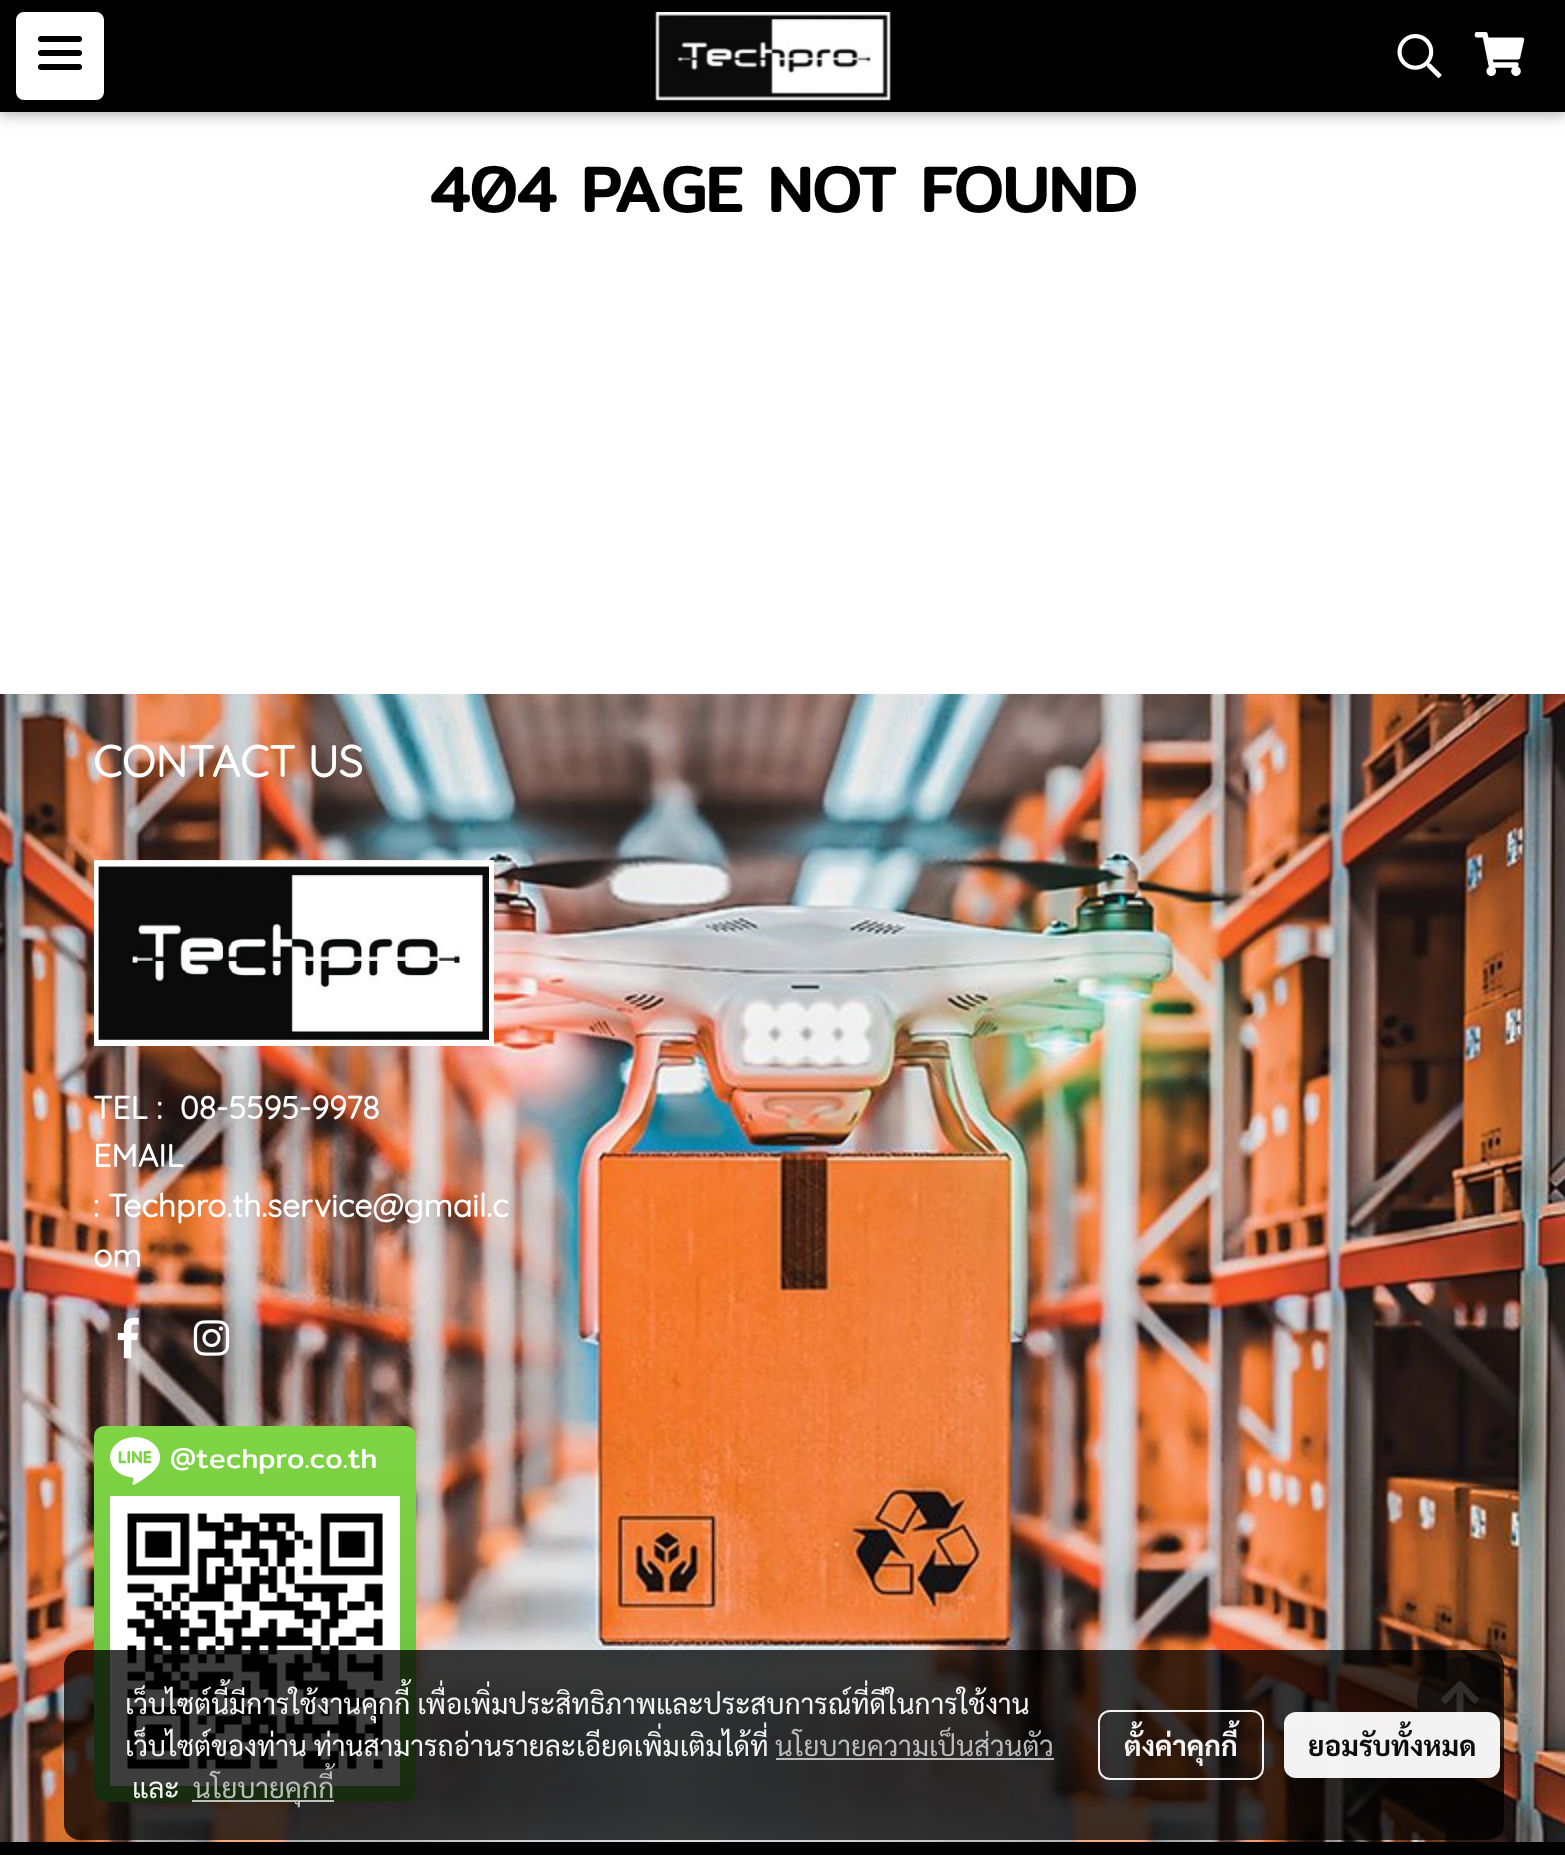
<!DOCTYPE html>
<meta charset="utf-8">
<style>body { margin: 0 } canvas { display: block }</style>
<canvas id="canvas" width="1565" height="1855"></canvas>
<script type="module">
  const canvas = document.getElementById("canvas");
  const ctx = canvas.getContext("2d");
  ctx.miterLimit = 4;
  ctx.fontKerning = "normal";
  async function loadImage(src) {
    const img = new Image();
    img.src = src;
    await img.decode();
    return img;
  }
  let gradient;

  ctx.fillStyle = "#ffffff";
  ctx.fillRect(0, 0, 1565, 1855);
  ctx.fillStyle = "rgba(0, 0, 0, 0.12)";
  ctx.filter = "blur(10px)";
  ctx.beginPath();
  ctx.rect(0, 4, 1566, 112);
  ctx.fill();
  ctx.filter = "none";
  ctx.fillStyle = "rgba(0, 0, 0, 0.16)";
  ctx.filter = "blur(5px)";
  ctx.beginPath();
  ctx.rect(0, 4, 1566, 112);
  ctx.fill();
  ctx.filter = "none";
  ctx.fillStyle = "#000000";
  ctx.fillRect(0, 0, 1565, 112);
  ctx.fillStyle = "#ffffff";
  ctx.beginPath();
  ctx.roundRect(17, 13, 86, 86, 7);
  ctx.fill();
  ctx.strokeStyle = "#ffffff";
  ctx.lineWidth = 2;
  ctx.stroke();
  ctx.fillStyle = "#000000";
  ctx.beginPath();
  ctx.roundRect(38, 50, 44, 6, 3);
  ctx.fill();
  ctx.beginPath();
  ctx.roundRect(38, 36, 44, 6, 3);
  ctx.fill();
  ctx.beginPath();
  ctx.roundRect(38, 64, 44, 6, 3);
  ctx.fill();
  ctx.drawImage(await loadImage("img1.png"), 655, 12, 236, 89);
  ctx.drawImage(await loadImage("img2.png"), 1397, 34, 45, 44);
  ctx.drawImage(await loadImage("img3.png"), 1474, 32, 51, 44);
  ctx.font = "bold 64px Mitr";
  ctx.fillText("404 PAGE NOT FOUND", 430, 212);
  ctx.drawImage(await loadImage("img4.png"), 0, 694, 1565, 1148);
  ctx.font = "bold 44px Quicksand";
  ctx.fillStyle = "#ffffff";
  ctx.fillText("CONTACT US", 93, 777);
  ctx.drawImage(await loadImage("img5.png"), 94, 860, 400, 186);
  ctx.font = "bold 32px Quicksand";
  ctx.fillText("TEL :  08-5595-9978", 93, 1119);
  ctx.fillText("EMAIL", 93, 1167);
  ctx.fillText(": Techpro.th.service@gmail.c", 93, 1217);
  ctx.fillText("om", 93, 1267);
  ctx.drawImage(await loadImage("img6.png"), 117, 1317, 22, 42);
  ctx.drawImage(await loadImage("img7.png"), 193, 1320, 37, 36);
  gradient = ctx.createLinearGradient(255, 1426, 255, 1802);
  gradient.addColorStop(0, "#80d544");
  gradient.addColorStop(1, "#65bc3e");
  ctx.fillStyle = gradient;
  ctx.beginPath();
  ctx.roundRect(94, 1426, 322, 376, 10);
  ctx.fill();
  ctx.drawImage(await loadImage("img8.png"), 110, 1437, 50, 48);
  ctx.font = "28px Mitr";
  ctx.fillStyle = "#ffffff";
  ctx.fillText("@techpro.co.th", 170, 1468);
  ctx.drawImage(await loadImage("img9.png"), 110, 1496, 290, 290);
  ctx.fillStyle = "#000000";
  ctx.fillRect(0, 1842, 1565, 13);
  ctx.fillStyle = "rgba(43, 42, 42, 0.7)";
  ctx.beginPath();
  ctx.moveTo(1460, 1657);
  ctx.bezierCurveTo(1436, 1657, 1417, 1676, 1417, 1700);
  ctx.bezierCurveTo(1417, 1724, 1436, 1743, 1460, 1743);
  ctx.bezierCurveTo(1484, 1743, 1503, 1724, 1503, 1700);
  ctx.bezierCurveTo(1503, 1676, 1484, 1657, 1460, 1657);
  ctx.closePath();
  ctx.fill();
  ctx.drawImage(await loadImage("img10.png"), 1441, 1680, 38, 40);
  ctx.fillStyle = "rgba(0, 0, 0, 0.76)";
  ctx.beginPath();
  ctx.roundRect(64, 1650, 1440, 190, 16);
  ctx.fill();
  ctx.font = "28px Sarabun";
  ctx.fillStyle = "#f4f4f4";
  ctx.fillText("เว็บไซต์นี้มีการใช้งานคุกกี้ เพื่อเพิ่มประสิทธิภาพและประสบการณ์ที่ดีในการใช้งาน", 125, 1714);
  ctx.fillText("เว็บไซต์ของท่าน ท่านสามารถอ่านรายละเอียดเพิ่มเติมได้ที่", 125, 1756);
  ctx.fillStyle = "#bababa";
  ctx.fillText("นโยบายความเป็นส่วนตัว", 775, 1756);
  ctx.fillStyle = "rgba(194, 194, 194, 0.95)";
  ctx.fillRect(776, 1758, 278, 2);
  ctx.fillStyle = "#f4f4f4";
  ctx.fillText("และ", 132, 1798);
  ctx.fillStyle = "#bdc2bb";
  ctx.fillRect(192, 1800, 142, 2);
  ctx.fillStyle = "#bababa";
  ctx.fillText("นโยบายคุกกี้", 193, 1798);
  ctx.beginPath();
  ctx.roundRect(1099, 1711, 164, 68, 11);
  ctx.strokeStyle = "rgba(255, 255, 255, 0.95)";
  ctx.stroke();
  ctx.font = "bold 28px Sarabun";
  ctx.fillStyle = "#f4f4f4";
  ctx.fillText("ตั้งค่าคุกกี้", 1124, 1756);
  ctx.fillStyle = "rgba(255, 255, 255, 0.95)";
  ctx.beginPath();
  ctx.roundRect(1284, 1712, 216, 66, 12);
  ctx.fill();
  ctx.fillStyle = "#0c0c0c";
  ctx.fillText("ยอมรับทั้งหมด", 1308, 1756);
</script>
